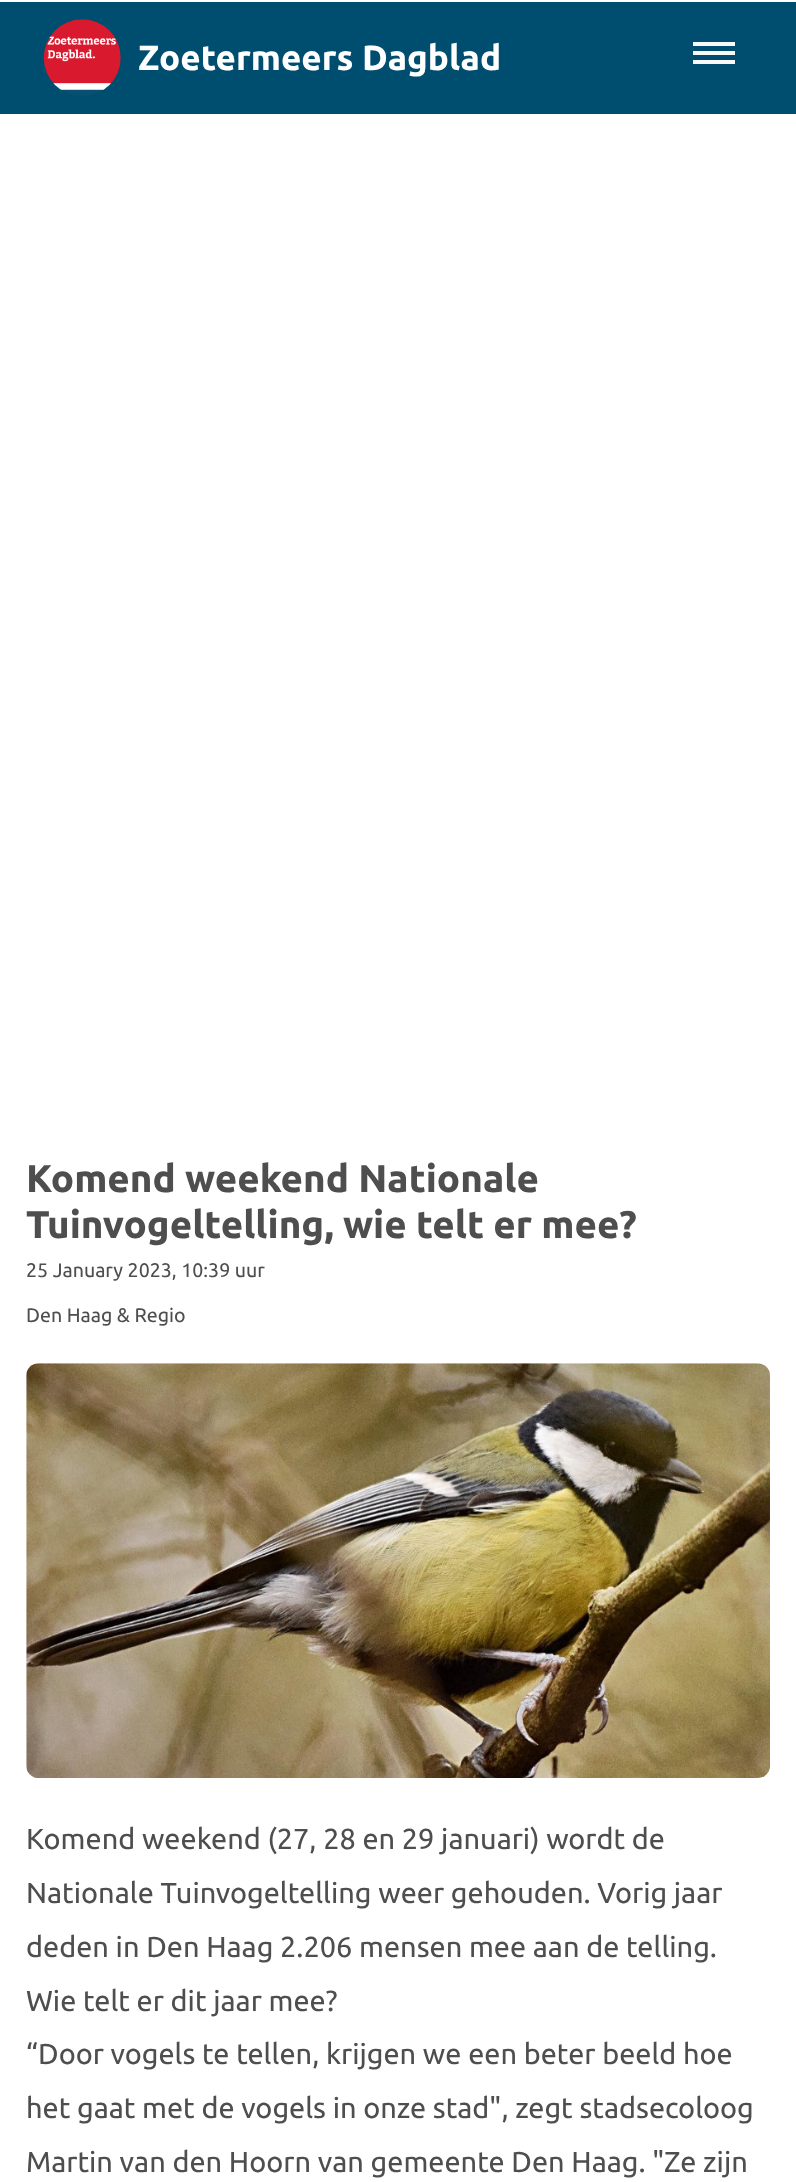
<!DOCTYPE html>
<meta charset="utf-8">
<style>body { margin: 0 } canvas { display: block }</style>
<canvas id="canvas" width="796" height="2182"></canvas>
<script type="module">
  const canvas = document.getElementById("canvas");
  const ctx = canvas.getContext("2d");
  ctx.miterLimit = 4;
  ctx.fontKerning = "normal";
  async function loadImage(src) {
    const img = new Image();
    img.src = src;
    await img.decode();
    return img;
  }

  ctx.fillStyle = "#ffffff";
  ctx.fillRect(0, 0, 796, 2182);
  ctx.fillStyle = "#004e6f";
  ctx.fillRect(0, 2, 796, 112);
  ctx.drawImage(await loadImage("img1.png"), 43, 19, 78, 77);
  ctx.font = "bold 35px Ubuntu";
  ctx.fillStyle = "#ffffff";
  ctx.fillText("Zoetermeers Dagblad", 138, 70);
  ctx.fillStyle = "#f9f9f9";
  ctx.fillRect(693, 51, 42, 4);
  ctx.fillRect(693, 42, 42, 4);
  ctx.fillRect(693, 60, 42, 4);
  ctx.font = "bold 38.5px Ubuntu";
  ctx.fillStyle = "#4e4e4e";
  ctx.fillText("Komend weekend Nationale", 26, 1192);
  ctx.fillText("Tuinvogeltelling, wie telt er mee?", 26, 1238);
  ctx.font = "19.6px Ubuntu";
  ctx.fillText("25 January 2023, 10:39 uur", 26, 1277);
  ctx.fillText("Den Haag & Regio", 26, 1322);
  ctx.drawImage(await loadImage("img2.png"), 26, 1363, 744, 415);
  ctx.font = "28.9px Ubuntu";
  ctx.fillText("Komend weekend (27, 28 en 29 januari) wordt de", 26, 1849);
  ctx.fillText("Nationale Tuinvogeltelling weer gehouden. Vorig jaar", 26, 1903);
  ctx.fillText("deden in Den Haag 2.206 mensen mee aan de telling.", 26, 1957);
  ctx.fillText("Wie telt er dit jaar mee?", 26, 2011);
  ctx.fillText("“Door vogels te tellen, krijgen we een beter beeld hoe", 26, 2064);
  ctx.fillText("het gaat met de vogels in onze stad\", zegt stadsecoloog", 26, 2118);
  ctx.fillText("Martin van den Hoorn van gemeente Den Haag. \"Ze zijn", 26, 2172);
</script>
